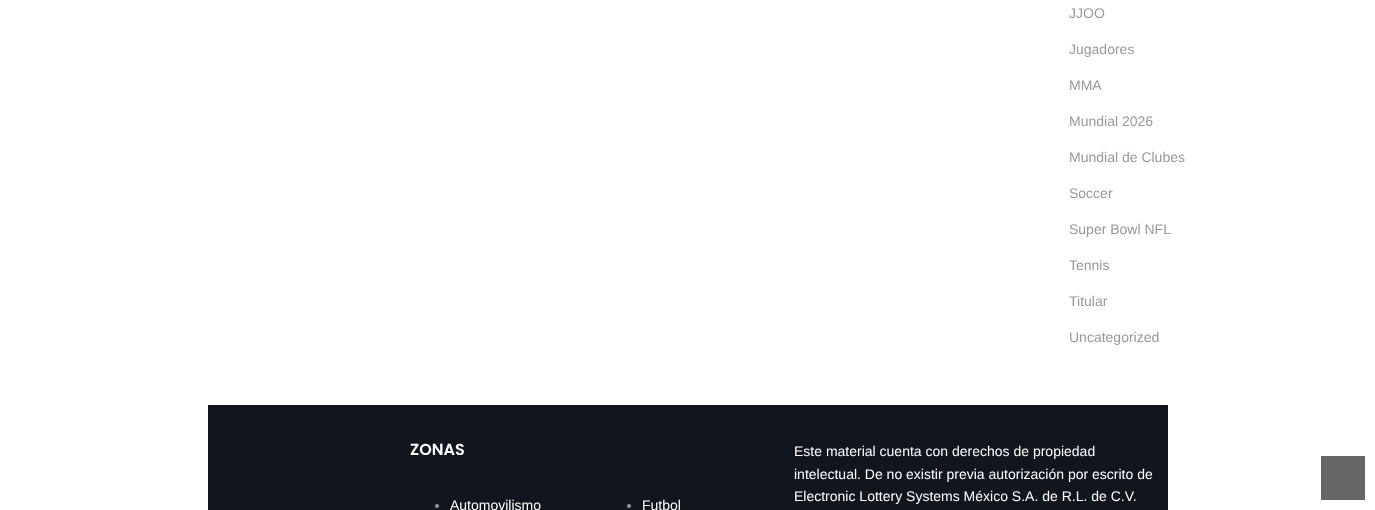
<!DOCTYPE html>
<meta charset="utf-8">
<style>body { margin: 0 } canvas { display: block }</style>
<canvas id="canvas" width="1375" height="510"></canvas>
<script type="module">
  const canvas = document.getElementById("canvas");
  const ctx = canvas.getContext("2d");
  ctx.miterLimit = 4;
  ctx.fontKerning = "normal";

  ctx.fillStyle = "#ffffff";
  ctx.fillRect(0, 0, 1375, 510);
  ctx.font = "14px Arimo";
  ctx.fillStyle = "#999999";
  ctx.fillText("JJOO", 1069, 18);
  ctx.fillText("Jugadores", 1069, 54);
  ctx.fillText("MMA", 1069, 90);
  ctx.fillText("Mundial 2026", 1069, 126);
  ctx.fillText("Mundial de Clubes", 1069, 162);
  ctx.fillText("Soccer", 1069, 198);
  ctx.fillText("Super Bowl NFL", 1069, 234);
  ctx.fillText("Tennis", 1069, 270);
  ctx.fillText("Titular", 1069, 306);
  ctx.fillText("Uncategorized", 1069, 342);
  ctx.fillStyle = "#11151e";
  ctx.fillRect(208, 405, 960, 105);
  ctx.font = "600 16px Poppins";
  ctx.fillStyle = "#ffffff";
  ctx.fillText("ZONAS", 410, 455);
  ctx.fillStyle = "#999999";
  ctx.beginPath();
  ctx.arc(437, 506, 2, 0, Math.PI * 2);
  ctx.fill();
  ctx.font = "14px Arimo";
  ctx.fillStyle = "#ffffff";
  ctx.fillText("Automovilismo", 450, 510);
  ctx.fillStyle = "#999999";
  ctx.beginPath();
  ctx.arc(629, 506, 2, 0, Math.PI * 2);
  ctx.fill();
  ctx.fillStyle = "#ffffff";
  ctx.fillText("Futbol", 642, 510);
  ctx.fillText("Este material cuenta con derechos de propiedad", 794, 456);
  ctx.fillText("intelectual. De no existir previa autorización por escrito de", 794, 479);
  ctx.fillText("Electronic Lottery Systems México S.A. de R.L. de C.V.", 794, 501);
  ctx.fillStyle = "#666666";
  ctx.fillRect(1321, 456, 44, 44);
</script>
